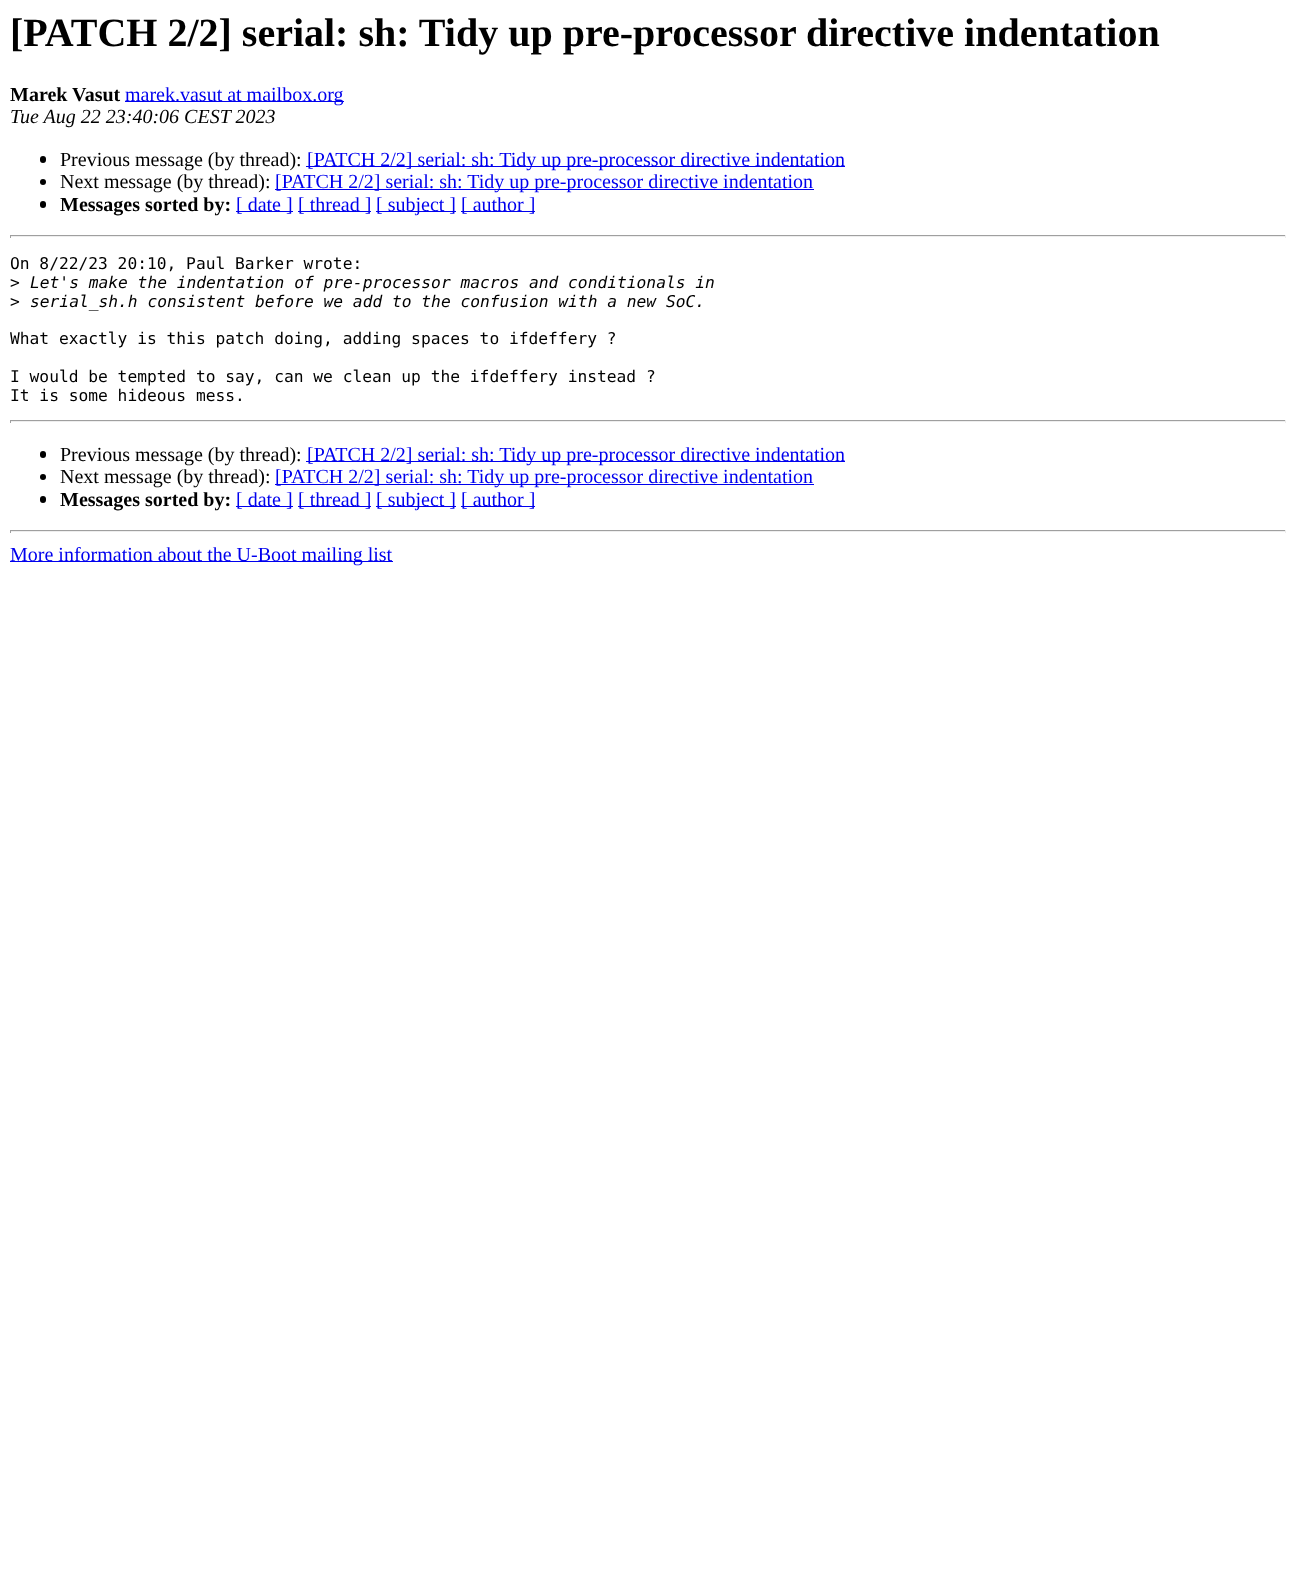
<!DOCTYPE html>
<meta charset="utf-8">
<style>body { margin: 0 } canvas { display: block }</style>
<canvas id="canvas" width="1296" height="1572"></canvas>
<script type="module">
  const canvas = document.getElementById("canvas");
  const ctx = canvas.getContext("2d");
  ctx.miterLimit = 4;
  ctx.fontKerning = "normal";

  ctx.fillStyle = "#ffffff";
  ctx.fillRect(0, 0, 1296, 1572);
  ctx.font = "bold 40px Liberation Serif";
  ctx.fillStyle = "#000000";
  ctx.fillText("[PATCH 2/2] serial: sh: Tidy up pre-processor directive indentation", 10, 46);
  ctx.font = "bold 20px Liberation Serif";
  ctx.fillText("Marek Vasut", 10, 101);
  ctx.fillStyle = "#0000ee";
  ctx.fillRect(125, 101, 219, 1);
  ctx.font = "20px Liberation Serif";
  ctx.fillText("marek.vasut at mailbox.org", 125, 101);
  ctx.font = "italic 20px Liberation Serif";
  ctx.fillStyle = "#000000";
  ctx.fillText("Tue Aug 22 23:40:06 CEST 2023", 10, 123);
  ctx.beginPath();
  ctx.roundRect(40, 156, 6, 7, 3);
  ctx.fill();
  ctx.font = "20px Liberation Serif";
  ctx.fillText("Previous message (by thread):", 60, 166);
  ctx.fillStyle = "#0000ee";
  ctx.fillRect(306, 166, 539, 1);
  ctx.fillText("[PATCH 2/2] serial: sh: Tidy up pre-processor directive indentation", 307, 166);
  ctx.fillStyle = "#000000";
  ctx.beginPath();
  ctx.arc(43, 182, 3, 0, Math.PI * 2);
  ctx.fill();
  ctx.fillText("Next message (by thread):", 60, 188);
  ctx.fillStyle = "#0000ee";
  ctx.fillRect(275, 189, 539, 1);
  ctx.fillText("[PATCH 2/2] serial: sh: Tidy up pre-processor directive indentation", 275, 188);
  ctx.fillStyle = "#000000";
  ctx.beginPath();
  ctx.roundRect(40, 201, 6, 7, 3);
  ctx.fill();
  ctx.font = "bold 20px Liberation Serif";
  ctx.fillText("Messages sorted by:", 60, 211);
  ctx.fillStyle = "#0000ee";
  ctx.fillRect(236, 211, 57, 1);
  ctx.font = "20px Liberation Serif";
  ctx.fillText("[ date ]", 236, 211);
  ctx.fillRect(298, 211, 73, 1);
  ctx.fillText("[ thread ]", 298, 211);
  ctx.fillRect(376, 211, 80, 1);
  ctx.fillText("[ subject ]", 376, 211);
  ctx.fillRect(461, 211, 74, 1);
  ctx.fillText("[ author ]", 461, 211);
  ctx.fillStyle = "#9f9f9f";
  ctx.fillRect(10, 235, 1276, 1);
  ctx.fillStyle = "#eeeeee";
  ctx.fillRect(1285, 235, 1, 3);
  ctx.fillRect(10, 236, 1276, 1);
  ctx.fillStyle = "#9f9f9f";
  ctx.fillRect(10, 235, 1, 3);
  ctx.font = "16.25px DejaVu Sans Mono";
  ctx.fillStyle = "#000000";
  ctx.fillText("On 8/22/23 20:10, Paul Barker wrote:", 10, 269);
  ctx.fillText(">", 10, 288);
  ctx.font = "italic 16.25px DejaVu Sans Mono";
  ctx.fillText("Let's make the indentation of pre-processor macros and conditionals in", 30, 288);
  ctx.font = "16.25px DejaVu Sans Mono";
  ctx.fillText(">", 10, 307);
  ctx.font = "italic 16.25px DejaVu Sans Mono";
  ctx.fillText("serial_sh.h consistent before we add to the confusion with a new SoC.", 30, 307);
  ctx.font = "16.25px DejaVu Sans Mono";
  ctx.fillText("What exactly is this patch doing, adding spaces to ifdeffery ?", 10, 344);
  ctx.fillText("I would be tempted to say, can we clean up the ifdeffery instead ?", 10, 382);
  ctx.fillText("It is some hideous mess.", 10, 401);
  ctx.fillStyle = "#9f9f9f";
  ctx.fillRect(10, 420, 1276, 1);
  ctx.fillStyle = "#eeeeee";
  ctx.fillRect(1285, 420, 1, 3);
  ctx.fillRect(10, 421, 1276, 1);
  ctx.fillStyle = "#9f9f9f";
  ctx.fillRect(10, 420, 1, 3);
  ctx.fillStyle = "#000000";
  ctx.beginPath();
  ctx.roundRect(40, 451, 6, 7, 3);
  ctx.fill();
  ctx.font = "20px Liberation Serif";
  ctx.fillText("Previous message (by thread):", 60, 461);
  ctx.fillStyle = "#0000ee";
  ctx.fillRect(306, 461, 539, 1);
  ctx.fillText("[PATCH 2/2] serial: sh: Tidy up pre-processor directive indentation", 307, 461);
  ctx.fillStyle = "#000000";
  ctx.beginPath();
  ctx.arc(43, 477, 3, 0, Math.PI * 2);
  ctx.fill();
  ctx.fillText("Next message (by thread):", 60, 483);
  ctx.fillStyle = "#0000ee";
  ctx.fillRect(275, 484, 539, 1);
  ctx.fillText("[PATCH 2/2] serial: sh: Tidy up pre-processor directive indentation", 275, 483);
  ctx.fillStyle = "#000000";
  ctx.beginPath();
  ctx.roundRect(40, 496, 6, 7, 3);
  ctx.fill();
  ctx.font = "bold 20px Liberation Serif";
  ctx.fillText("Messages sorted by:", 60, 506);
  ctx.fillStyle = "#0000ee";
  ctx.fillRect(236, 506, 57, 1);
  ctx.font = "20px Liberation Serif";
  ctx.fillText("[ date ]", 236, 506);
  ctx.fillRect(298, 506, 73, 1);
  ctx.fillText("[ thread ]", 298, 506);
  ctx.fillRect(376, 506, 80, 1);
  ctx.fillText("[ subject ]", 376, 506);
  ctx.fillRect(461, 506, 74, 1);
  ctx.fillText("[ author ]", 461, 506);
  ctx.fillStyle = "#9f9f9f";
  ctx.fillRect(10, 530, 1276, 1);
  ctx.fillStyle = "#eeeeee";
  ctx.fillRect(1285, 530, 1, 3);
  ctx.fillRect(10, 531, 1276, 1);
  ctx.fillStyle = "#9f9f9f";
  ctx.fillRect(10, 530, 1, 3);
  ctx.fillStyle = "#0000ee";
  ctx.fillRect(10, 561, 383, 1);
  ctx.fillText("More information about the U-Boot mailing list", 10, 561);
</script>
